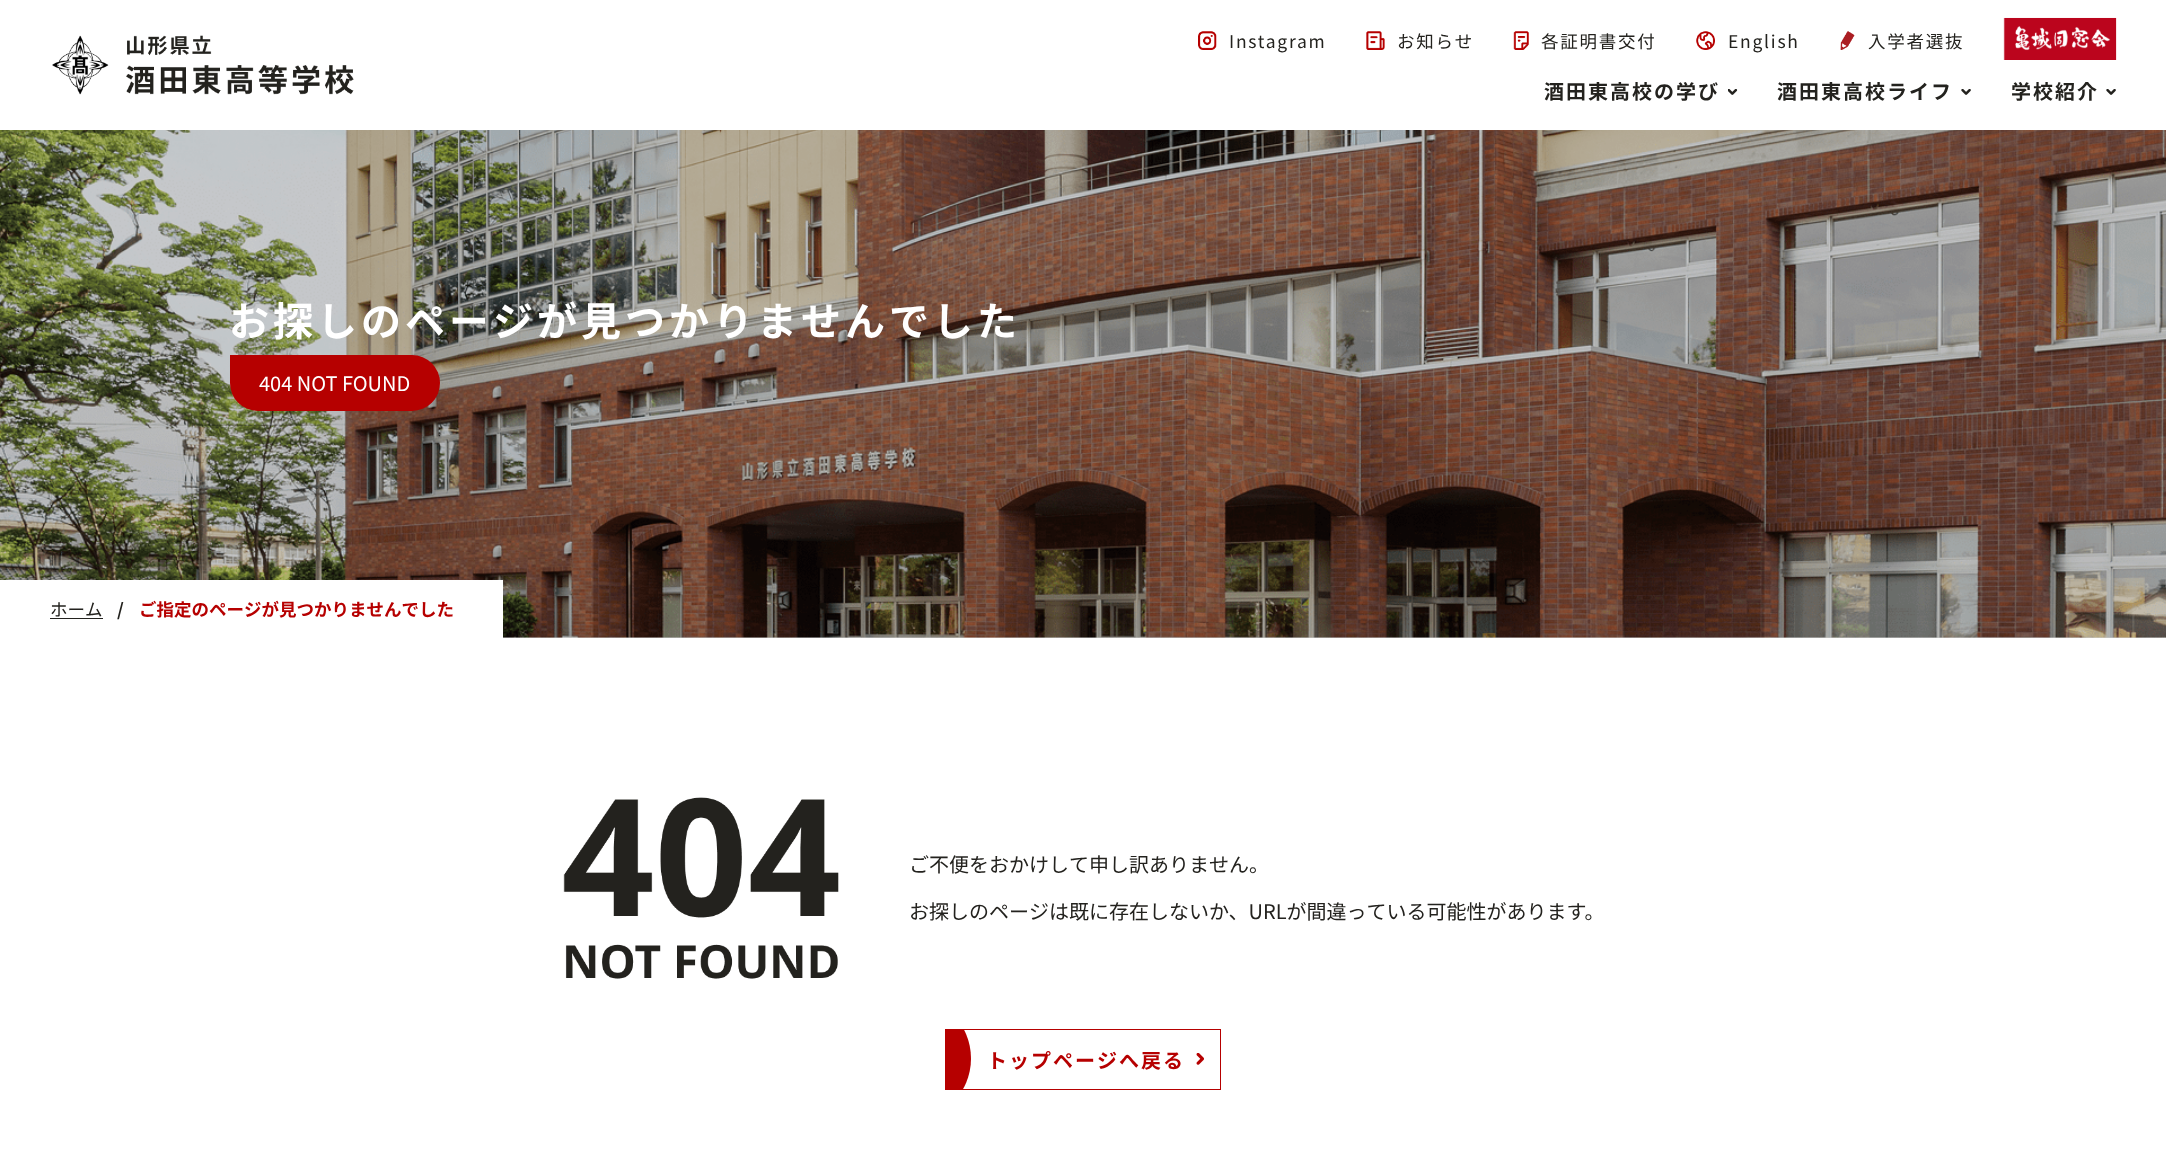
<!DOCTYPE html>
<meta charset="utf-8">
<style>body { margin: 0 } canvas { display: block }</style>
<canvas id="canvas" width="2166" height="1152"></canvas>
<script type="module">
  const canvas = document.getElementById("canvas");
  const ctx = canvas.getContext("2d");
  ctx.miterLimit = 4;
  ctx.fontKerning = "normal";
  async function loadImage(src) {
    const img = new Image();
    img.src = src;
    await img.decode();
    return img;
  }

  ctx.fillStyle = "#ffffff";
  ctx.fillRect(0, 0, 2166, 1152);
  ctx.fillStyle = "#cccccc";
  ctx.fillRect(503, 637, 1663, 1);
  ctx.drawImage(await loadImage("img1.png"), 52, 35, 302, 60);
  ctx.drawImage(await loadImage("img2.png"), 1198, 31, 19, 19);
  ctx.letterSpacing = "1.75px";
  ctx.font = "17.5px Noto Sans JP";
  ctx.fillStyle = "#23221e";
  ctx.fillText("Instagram", 1229, 48);
  ctx.drawImage(await loadImage("img3.png"), 1366, 31, 19, 19);
  ctx.fillText("お知らせ", 1397, 48);
  ctx.drawImage(await loadImage("img4.png"), 1513, 31, 16, 19);
  ctx.fillText("各証明書交付", 1541, 48);
  ctx.drawImage(await loadImage("img5.png"), 1696, 31, 19, 19);
  ctx.fillText("English", 1728, 48);
  ctx.drawImage(await loadImage("img6.png"), 1840, 31, 15, 19);
  ctx.fillText("入学者選抜", 1868, 48);
  ctx.drawImage(await loadImage("img7.png"), 2003, 17, 114, 43);
  ctx.letterSpacing = "2px";
  ctx.font = "bold 20px Noto Sans JP";
  ctx.fillText("酒田東高校の学び", 1544, 99);
  ctx.drawImage(await loadImage("img8.png"), 1728, 89, 10, 6);
  ctx.fillText("酒田東高校ライフ", 1777, 99);
  ctx.drawImage(await loadImage("img9.png"), 1961, 89, 10, 6);
  ctx.fillText("学校紹介", 2011, 99);
  ctx.drawImage(await loadImage("img9.png"), 2106, 89, 10, 6);
  ctx.drawImage(await loadImage("img10.png"), 0, 130, 2166, 508);
  ctx.letterSpacing = "4px";
  ctx.font = "bold 40px Noto Sans JP";
  ctx.fillStyle = "#ffffff";
  ctx.fillText("お探しのページが見つかりませんでした", 229, 336);
  ctx.fillStyle = "#b60000";
  ctx.beginPath();
  ctx.roundRect(230, 355, 210, 56, [0, 28, 28, 28]);
  ctx.fill();
  ctx.letterSpacing = "0px";
  ctx.font = "20px Noto Sans JP";
  ctx.fillStyle = "#ffffff";
  ctx.fillText("404 NOT FOUND", 259, 391);
  ctx.fillRect(0, 580, 503, 58);
  ctx.font = "17.5px Noto Sans JP";
  ctx.fillStyle = "#23221e";
  ctx.fillText("ホーム", 50, 616);
  ctx.fillRect(50, 618, 53, 1);
  ctx.font = "bold 17.5px Noto Sans JP";
  ctx.fillText("/", 117, 616);
  ctx.fillStyle = "#b60000";
  ctx.fillText("ご指定のページが見つかりませんでした", 139, 616);
  ctx.drawImage(await loadImage("img11.png"), 563, 797, 276, 182);
  ctx.font = "20px Noto Sans JP";
  ctx.fillStyle = "#23221e";
  ctx.fillText("ご不便をおかけして申し訳ありません。", 909, 872);
  ctx.fillText("お探しのページは既に存在しないか、URLが間違っている可能性があります。", 909, 919);
  ctx.strokeStyle = "#b60000";
  ctx.strokeRect(945.5, 1029.5, 275, 60);
  ctx.save();
  ctx.beginPath();
  ctx.rect(946, 1030, 274, 59);
  ctx.clip();
  ctx.fillStyle = "#b60000";
  ctx.beginPath();
  ctx.arc(908.5, 1058.5, 62.5, 0, Math.PI * 2);
  ctx.fill();
  ctx.restore();
  ctx.letterSpacing = "2px";
  ctx.font = "bold 20px Noto Sans JP";
  ctx.fillStyle = "#b60000";
  ctx.fillText("トップページへ戻る", 987, 1068);
  ctx.drawImage(await loadImage("img12.png"), 1196, 1053, 8, 12);
</script>
